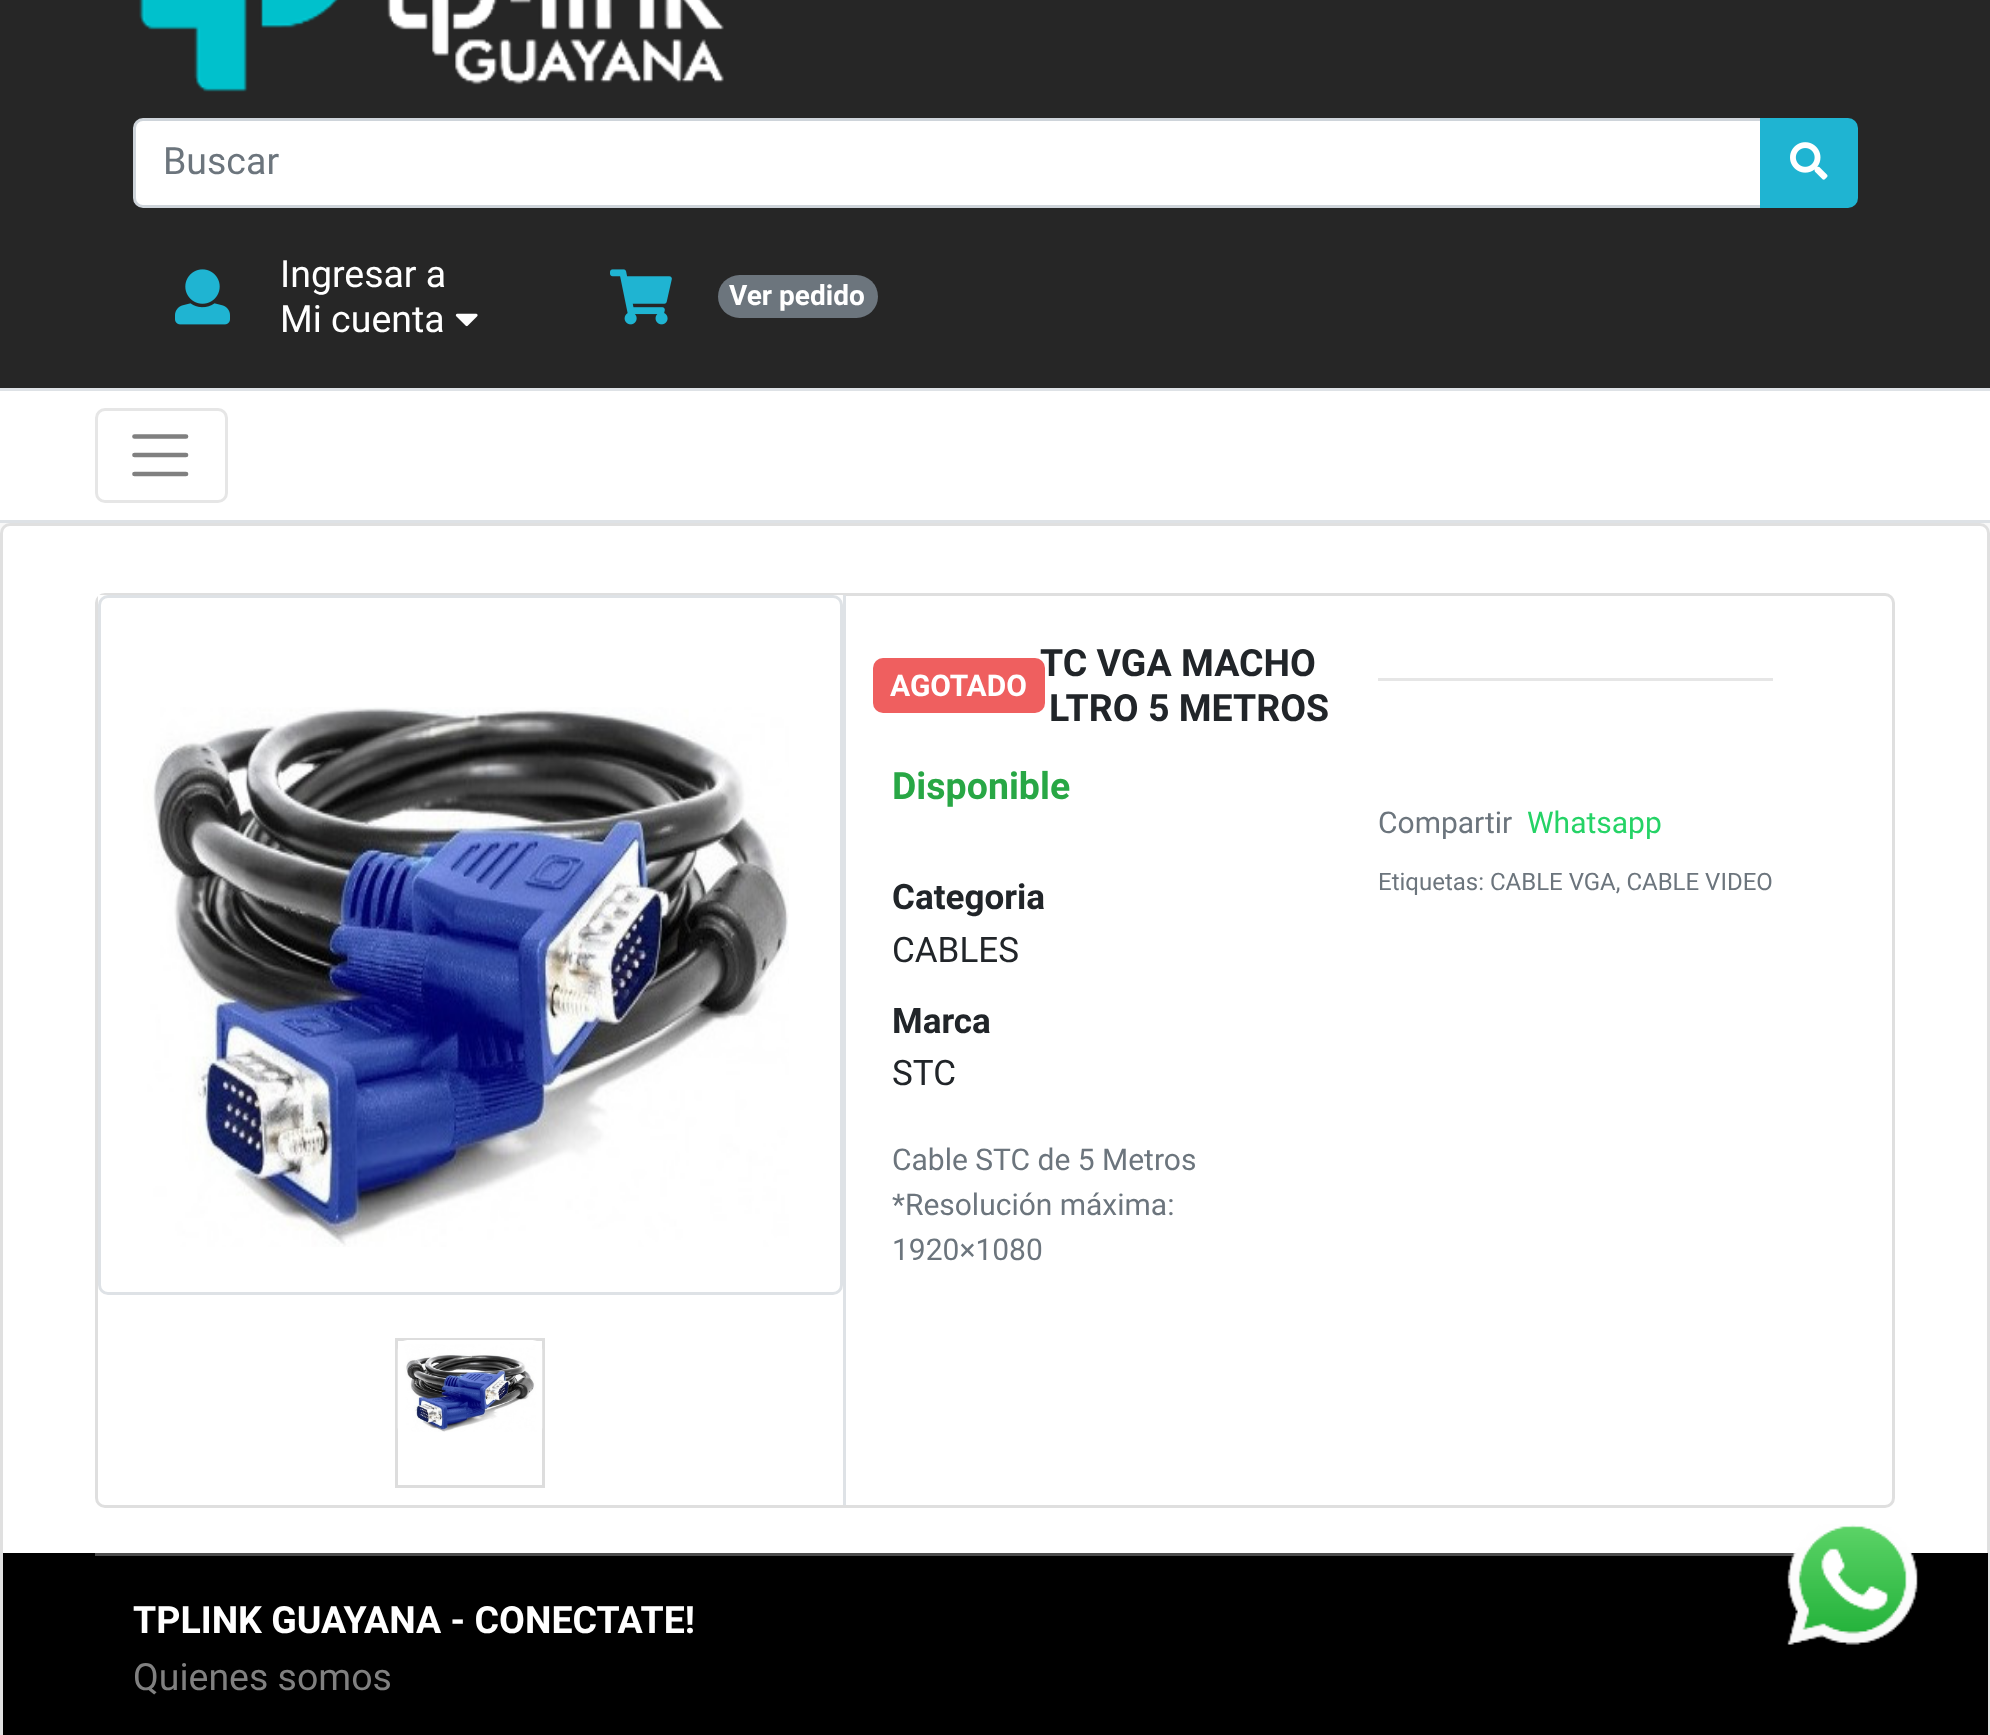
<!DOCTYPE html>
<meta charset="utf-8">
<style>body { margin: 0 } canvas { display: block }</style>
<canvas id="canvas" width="1990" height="1735"></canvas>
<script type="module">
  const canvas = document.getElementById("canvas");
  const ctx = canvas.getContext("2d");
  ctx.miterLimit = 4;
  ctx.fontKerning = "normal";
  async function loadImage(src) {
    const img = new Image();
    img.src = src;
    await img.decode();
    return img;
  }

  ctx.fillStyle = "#ffffff";
  ctx.fillRect(0, 0, 1990, 1735);
  ctx.fillStyle = "#262626";
  ctx.fillRect(0, 0, 1990, 388);
  ctx.fillStyle = "#dee2e6";
  ctx.fillRect(0, 388, 1990, 3);
  ctx.drawImage(await loadImage("img1.png"), 139, 0, 585, 92);
  ctx.fillStyle = "#ffffff";
  ctx.beginPath();
  ctx.roundRect(134.5, 119.5, 1627, 87, [8.5, 0, 0, 8.5]);
  ctx.fill();
  ctx.strokeStyle = "#ced4da";
  ctx.lineWidth = 3;
  ctx.stroke();
  ctx.font = "37.5px Roboto";
  ctx.fillStyle = "#6c757d";
  ctx.fillText("Buscar", 163, 174);
  ctx.fillStyle = "#1fb4d2";
  ctx.beginPath();
  ctx.roundRect(1760, 118, 98, 90, [0, 10, 10, 0]);
  ctx.fill();
  ctx.drawImage(await loadImage("img2.png"), 1790, 142, 38, 38);
  ctx.drawImage(await loadImage("img3.png"), 175, 269, 55, 56);
  ctx.fillStyle = "#ffffff";
  ctx.fillText("Ingresar a", 280, 287);
  ctx.fillText("Mi cuenta", 280, 332);
  ctx.drawImage(await loadImage("img4.png"), 455, 313, 23, 14);
  ctx.drawImage(await loadImage("img5.png"), 610, 269, 62, 56);
  ctx.fillStyle = "#6c757d";
  ctx.beginPath();
  ctx.roundRect(718, 275, 160, 43, 21.5);
  ctx.fill();
  ctx.font = "bold 28px Roboto";
  ctx.fillStyle = "#ffffff";
  ctx.fillText("Ver pedido", 729, 305);
  ctx.fillStyle = "#dee2e6";
  ctx.fillRect(0, 520, 1990, 3);
  ctx.beginPath();
  ctx.roundRect(96.5, 409.5, 130, 92, 8.5);
  ctx.strokeStyle = "#e6e6e6";
  ctx.stroke();
  ctx.beginPath();
  ctx.moveTo(134.5, 436.5);
  ctx.lineTo(186, 436.5);
  ctx.moveTo(134.5, 455);
  ctx.lineTo(186, 455);
  ctx.moveTo(134.5, 474);
  ctx.lineTo(186, 474);
  ctx.strokeStyle = "#808080";
  ctx.lineWidth = 4.7;
  ctx.lineCap = "round";
  ctx.stroke();
  ctx.fillStyle = "#f8f8f8";
  ctx.fillRect(0, 523, 1990, 10);
  ctx.fillStyle = "#ffffff";
  ctx.beginPath();
  ctx.roundRect(0, 523, 1990, 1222, 10);
  ctx.fill();
  ctx.beginPath();
  ctx.roundRect(1.5, 524.5, 1987, 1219, 8.5);
  ctx.strokeStyle = "rgba(0, 0, 0, 0.12)";
  ctx.lineWidth = 3;
  ctx.stroke();
  ctx.beginPath();
  ctx.roundRect(96.5, 594.5, 1797, 912, 8.5);
  ctx.strokeStyle = "#dfdfdf";
  ctx.stroke();
  ctx.fillStyle = "#dee2e6";
  ctx.fillRect(843, 595, 3, 910);
  ctx.fillStyle = "#ffffff";
  ctx.fillRect(98, 595, 745, 7);
  ctx.beginPath();
  ctx.roundRect(99.5, 596.5, 742, 697, 8.5);
  ctx.strokeStyle = "#dee2e6";
  ctx.stroke();
  ctx.drawImage(await loadImage("img6.png"), 143, 707, 646, 540);
  ctx.strokeStyle = "#dddddd";
  ctx.strokeRect(396.5, 1339.5, 147, 147);
  ctx.drawImage(await loadImage("img7.png"), 397, 1340, 146, 92);
  ctx.font = "bold 37.5px Roboto";
  ctx.fillStyle = "#212529";
  ctx.fillText("TC VGA MACHO", 1040, 676);
  ctx.fillStyle = "#ef5f5f";
  ctx.beginPath();
  ctx.roundRect(873, 658, 172, 55, 10);
  ctx.fill();
  ctx.font = "bold 30px Roboto";
  ctx.fillStyle = "#ffffff";
  ctx.fillText("AGOTADO", 890, 696);
  ctx.font = "bold 37.5px Roboto";
  ctx.fillStyle = "#212529";
  ctx.fillText("LTRO 5 METROS", 1049, 721);
  ctx.fillStyle = "#28a745";
  ctx.fillText("Disponible", 892, 799);
  ctx.font = "bold 35px Roboto";
  ctx.fillStyle = "#212529";
  ctx.fillText("Categoria", 892, 909);
  ctx.font = "35px Roboto";
  ctx.fillText("CABLES", 892, 962);
  ctx.font = "bold 35px Roboto";
  ctx.fillText("Marca", 892, 1033);
  ctx.font = "35px Roboto";
  ctx.fillText("STC", 892, 1085);
  ctx.font = "30px Roboto";
  ctx.fillStyle = "#6c757d";
  ctx.fillText("Cable STC de 5 Metros", 892, 1170);
  ctx.fillText("*Resolución máxima:", 892, 1215);
  ctx.fillText("1920×1080", 892, 1260);
  ctx.fillStyle = "#e6e6e6";
  ctx.fillRect(1378, 678, 395, 3);
  ctx.fillStyle = "#6c757d";
  ctx.fillText("Compartir", 1378, 833);
  ctx.fillStyle = "#25d366";
  ctx.fillText("Whatsapp", 1527, 833);
  ctx.font = "24px Roboto";
  ctx.fillStyle = "#6c757d";
  ctx.fillText("Etiquetas: CABLE VGA, CABLE VIDEO", 1378, 890);
  ctx.fillStyle = "#000000";
  ctx.fillRect(3, 1553, 1985, 182);
  ctx.fillStyle = "#4d4d4d";
  ctx.fillRect(95, 1553, 1702, 3);
  ctx.font = "bold 37.5px Roboto";
  ctx.fillStyle = "#ffffff";
  ctx.fillText("TPLINK GUAYANA - CONECTATE!", 133, 1633);
  ctx.font = "37.5px Roboto";
  ctx.fillStyle = "#808080";
  ctx.fillText("Quienes somos", 133, 1690);
  ctx.drawImage(await loadImage("img8.png"), 1787, 1524, 131, 121);
</script>
